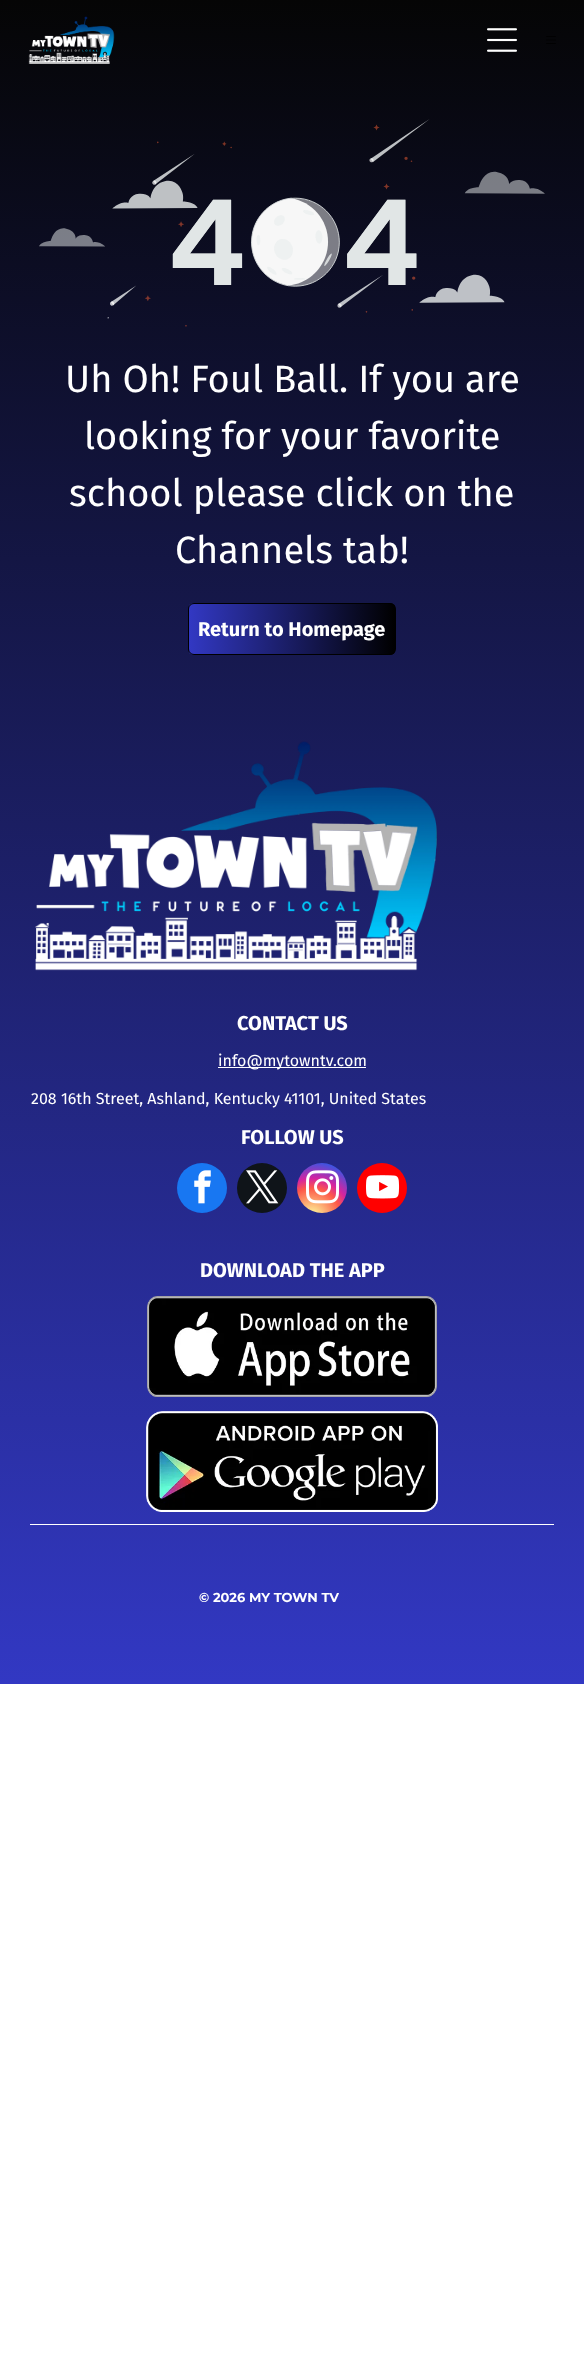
<!DOCTYPE html>
<meta charset="utf-8">
<style>body { margin: 0 } canvas { display: block }</style>
<canvas id="canvas" width="584" height="2366"></canvas>
<script type="module">
  const canvas = document.getElementById("canvas");
  const ctx = canvas.getContext("2d");
  ctx.miterLimit = 4;
  ctx.fontKerning = "normal";
  async function loadImage(src) {
    const img = new Image();
    img.src = src;
    await img.decode();
    return img;
  }
  let gradient;

  ctx.fillStyle = "#ffffff";
  ctx.fillRect(0, 0, 584, 2366);
  gradient = ctx.createLinearGradient(292, 0, 292, 1684);
  gradient.addColorStop(0, "#050505");
  gradient.addColorStop(1, "#3238c3");
  ctx.fillStyle = gradient;
  ctx.fillRect(0, 0, 584, 1684);
  ctx.drawImage(await loadImage("img1.png"), 28, 16, 87, 48);
  ctx.drawImage(await loadImage("img2.png"), 487, 28, 30, 24);
  ctx.drawImage(await loadImage("img3.png"), 546, 36, 10, 8);
  ctx.drawImage(await loadImage("img4.png"), 39, 119, 506, 208);
  ctx.font = "38px Fira Sans";
  ctx.fillStyle = "#ffffff";
  ctx.fillText("Uh Oh! Foul Ball. If you are", 65, 392);
  ctx.fillText("looking for your favorite", 84, 449);
  ctx.fillText("school please click on the", 69, 506);
  ctx.fillText("Channels tab!", 175, 563);
  ctx.save();
  ctx.beginPath();
  ctx.roundRect(188, 603, 208, 52, 6);
  ctx.clip();
  gradient = ctx.createLinearGradient(189, 629, 395, 629);
  gradient.addColorStop(0, "#3238c3");
  gradient.addColorStop(1, "#000000");
  ctx.fillStyle = gradient;
  ctx.fillRect(189, 603, 206, 52);
  ctx.restore();
  ctx.beginPath();
  ctx.roundRect(188.5, 603.5, 207, 51, 5.5);
  ctx.strokeStyle = "#000000";
  ctx.stroke();
  ctx.font = "bold 20px Fira Sans";
  ctx.fillText("Return to Homepage", 198, 636);
  ctx.drawImage(await loadImage("img5.png"), 35, 741, 402, 230);
  ctx.fillText("CONTACT US", 237, 1030);
  ctx.fillRect(218, 1067, 148, 1);
  ctx.font = "16px Fira Sans";
  ctx.fillText("info@mytowntv.com", 218, 1066);
  ctx.fillText("208 16th Street, Ashland, Kentucky 41101, United States", 31, 1104);
  ctx.font = "bold 20px Fira Sans";
  ctx.fillText("FOLLOW US", 241, 1144);
  ctx.fillStyle = "#1877f2";
  ctx.beginPath();
  ctx.arc(202, 1188, 25, 0, Math.PI * 2);
  ctx.fill();
  ctx.drawImage(await loadImage("img6.png"), 194, 1170, 17, 34);
  ctx.fillStyle = "#0f1419";
  ctx.beginPath();
  ctx.arc(262, 1188, 25, 0, Math.PI * 2);
  ctx.fill();
  ctx.drawImage(await loadImage("img7.png"), 246, 1170, 33, 34);
  gradient = ctx.createRadialGradient(312, 1217, 0, 312, 1217, 64);
  gradient.addColorStop(0, "#fdf497");
  gradient.addColorStop(0.05, "#fdf497");
  gradient.addColorStop(0.45, "#fd5949");
  gradient.addColorStop(0.6, "#d6249f");
  gradient.addColorStop(0.9, "#285aeb");
  ctx.fillStyle = gradient;
  ctx.beginPath();
  ctx.arc(322, 1188, 25, 0, Math.PI * 2);
  ctx.fill();
  ctx.drawImage(await loadImage("img8.png"), 306, 1170, 33, 34);
  ctx.fillStyle = "#ff0000";
  ctx.beginPath();
  ctx.arc(382, 1188, 25, 0, Math.PI * 2);
  ctx.fill();
  ctx.drawImage(await loadImage("img9.png"), 366, 1175, 34, 24);
  ctx.fillStyle = "#ffffff";
  ctx.fillText("DOWNLOAD THE APP", 200, 1277);
  ctx.drawImage(await loadImage("img10.png"), 147, 1296, 290, 101);
  ctx.drawImage(await loadImage("img11.png"), 146, 1411, 292, 101);
  ctx.fillRect(30, 1524, 524, 1);
  ctx.font = "bold 13px Montserrat";
  ctx.fillText("© 2026 MY TOWN TV", 199, 1602);
</script>
